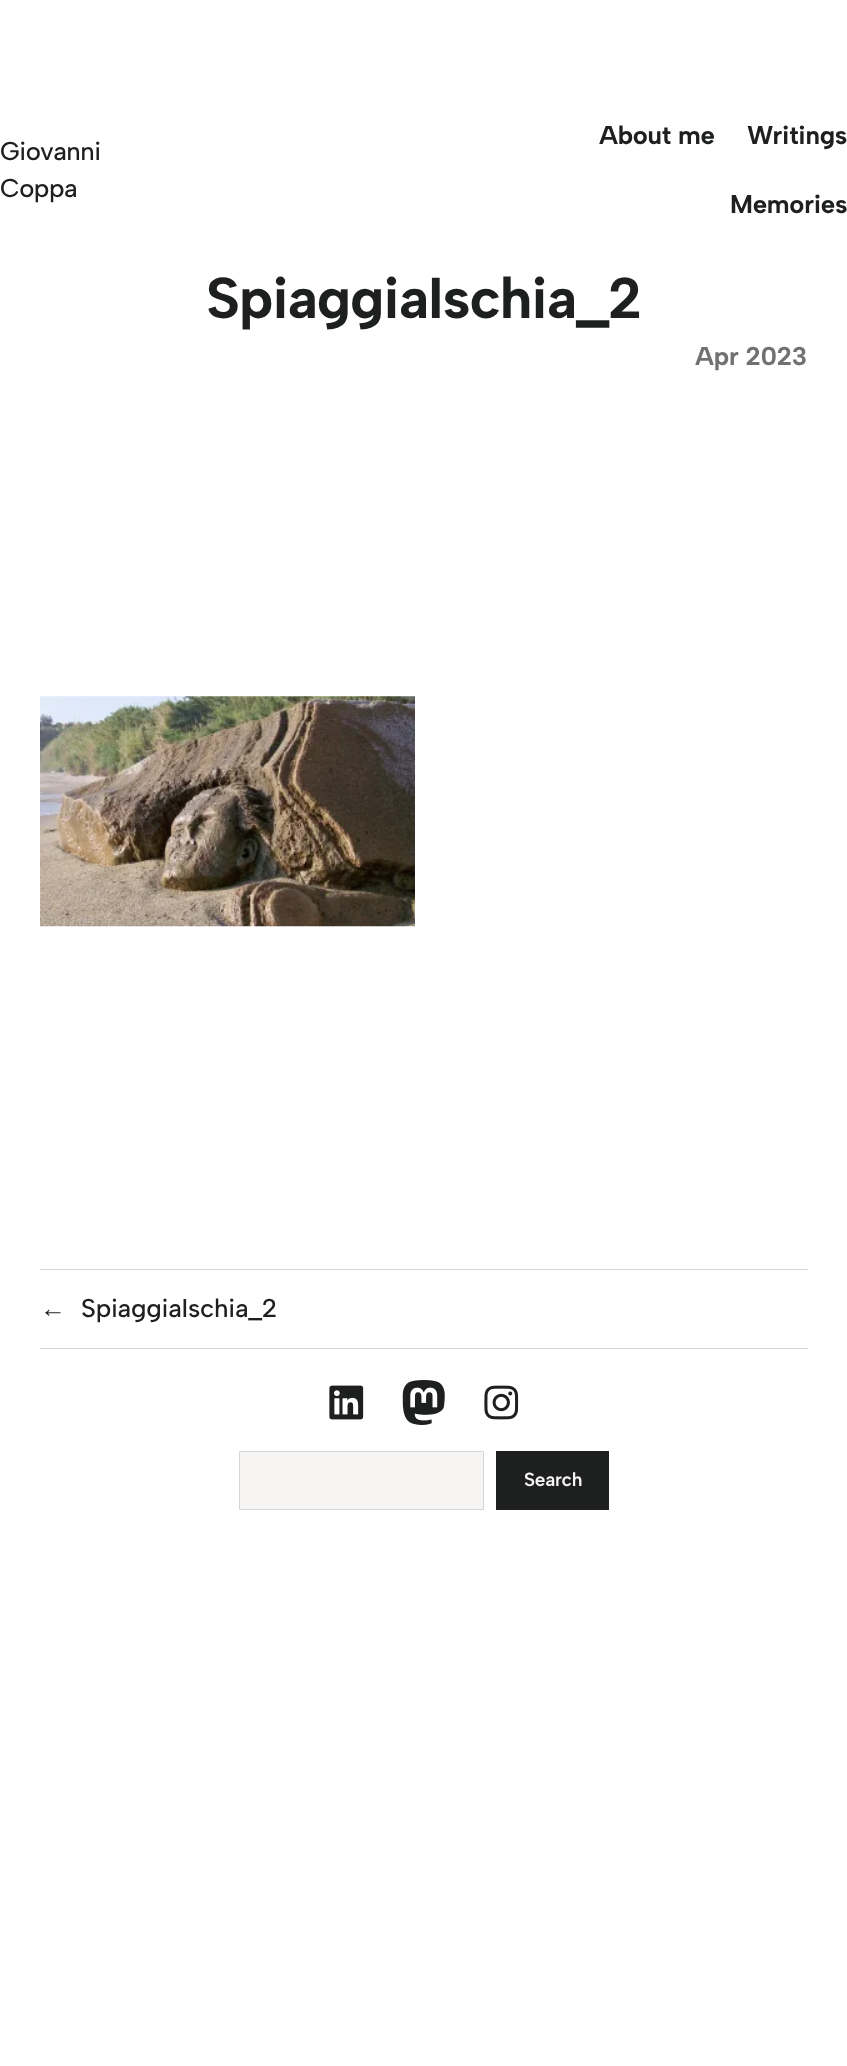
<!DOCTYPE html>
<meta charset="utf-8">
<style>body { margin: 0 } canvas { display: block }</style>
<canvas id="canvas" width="847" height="2066"></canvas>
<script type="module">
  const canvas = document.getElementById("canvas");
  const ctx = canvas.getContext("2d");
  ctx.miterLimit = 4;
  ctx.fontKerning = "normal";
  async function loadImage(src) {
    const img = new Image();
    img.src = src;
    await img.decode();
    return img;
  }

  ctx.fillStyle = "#ffffff";
  ctx.fillRect(0, 0, 847, 2066);
  ctx.letterSpacing = "-0.5px";
  ctx.font = "500 25.75px Albert Sans";
  ctx.fillStyle = "#1d201f";
  ctx.fillText("Giovanni", 0, 160);
  ctx.fillText("Coppa", 0, 197);
  ctx.letterSpacing = "-0.25px";
  ctx.font = "bold 25.75px Albert Sans";
  ctx.fillText("About me", 599, 144);
  ctx.fillText("Writings", 747, 144);
  ctx.fillText("Memories", 730, 213);
  ctx.letterSpacing = "-1.1px";
  ctx.font = "bold 57.5px Albert Sans";
  ctx.fillText("SpiaggiaIschia_2", 206, 318);
  ctx.letterSpacing = "-0.25px";
  ctx.font = "bold 25.75px Albert Sans";
  ctx.fillStyle = "#707170";
  ctx.fillText("Apr 2023", 695, 365);
  ctx.drawImage(await loadImage("img1.png"), 40, 696, 375, 231);
  ctx.fillStyle = "#d6d5d3";
  ctx.fillRect(40, 1269, 768, 1);
  ctx.fillRect(40, 1348, 768, 1);
  ctx.font = "25.75px Liberation Sans";
  ctx.fillStyle = "#1d201f";
  ctx.fillText("←", 40, 1317);
  ctx.font = "500 25.75px Albert Sans";
  ctx.fillText("SpiaggiaIschia_2", 81, 1317);
  ctx.drawImage(await loadImage("img2.png"), 329, 1385, 35, 35);
  ctx.drawImage(await loadImage("img3.png"), 402, 1380, 43, 45);
  ctx.drawImage(await loadImage("img4.png"), 484, 1385, 35, 35);
  ctx.fillStyle = "#f7f5f3";
  ctx.beginPath();
  ctx.rect(239.5, 1451.5, 244, 58);
  ctx.fill();
  ctx.strokeStyle = "#d6d5d3";
  ctx.stroke();
  ctx.fillStyle = "#1d201f";
  ctx.fillRect(496, 1451, 113, 59);
  ctx.font = "600 19px Albert Sans";
  ctx.fillStyle = "#f7f5f3";
  ctx.fillText("Search", 524, 1486);
</script>
